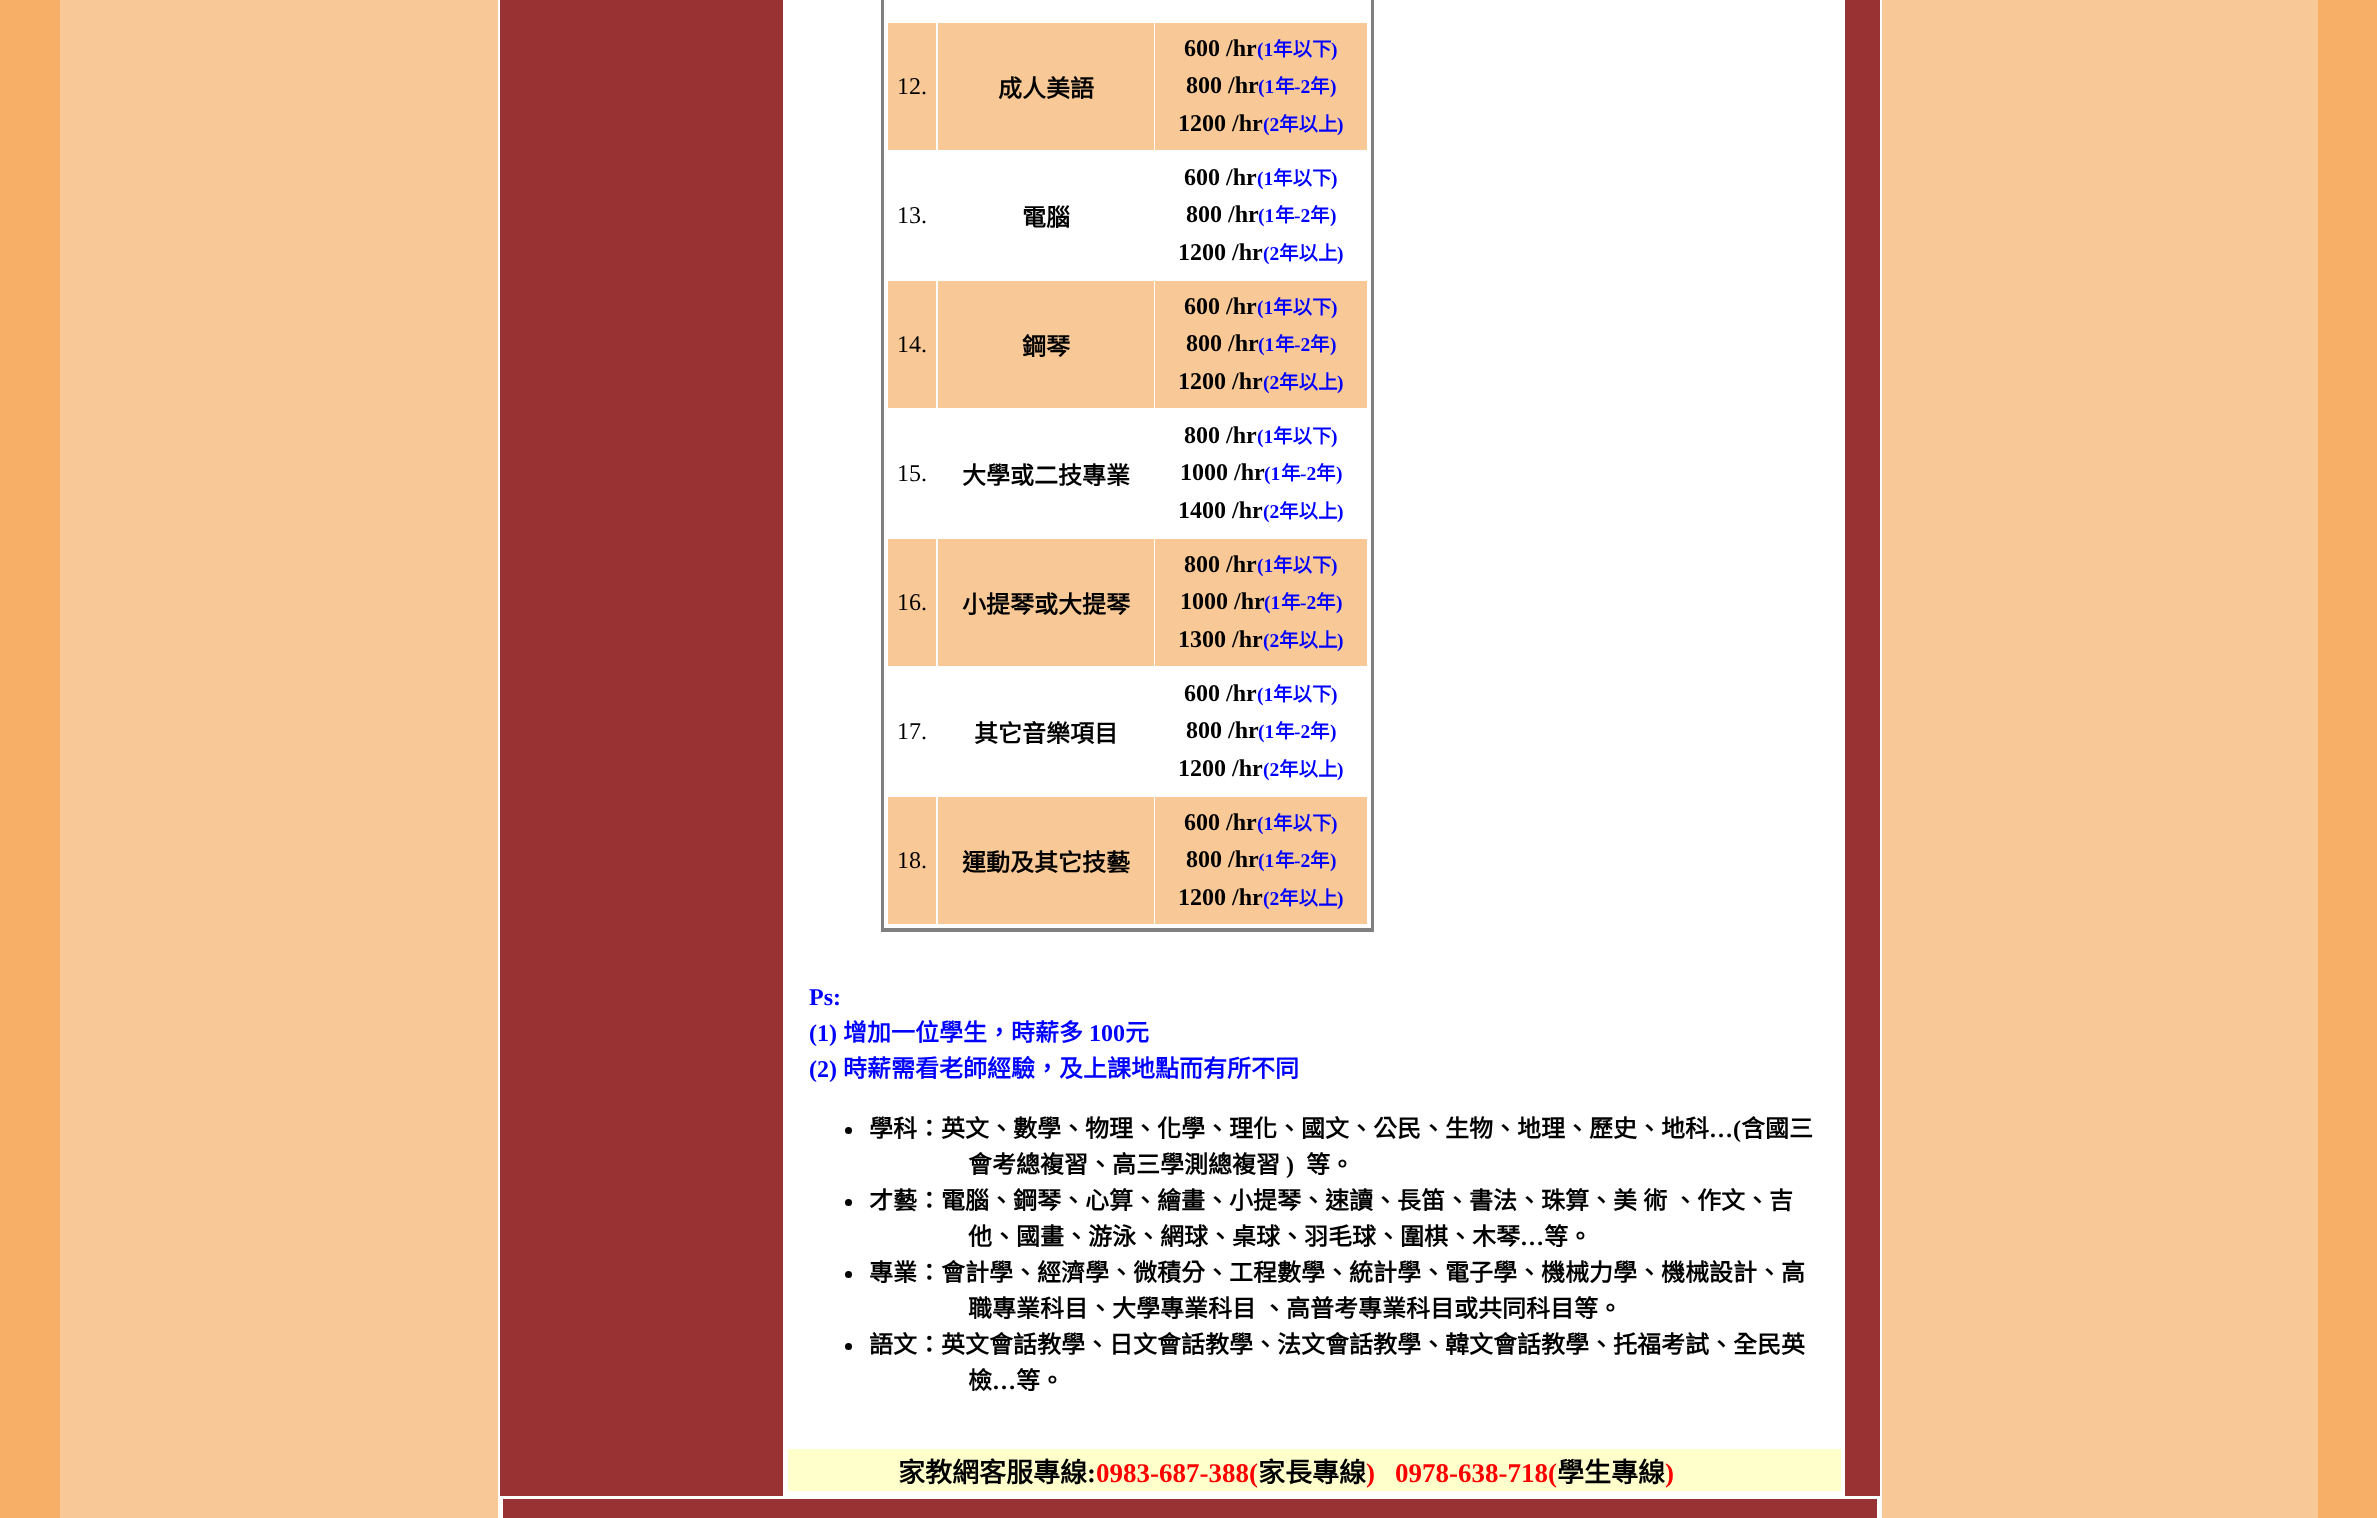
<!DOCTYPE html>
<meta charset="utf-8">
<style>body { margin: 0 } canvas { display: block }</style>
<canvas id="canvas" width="2377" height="1518"></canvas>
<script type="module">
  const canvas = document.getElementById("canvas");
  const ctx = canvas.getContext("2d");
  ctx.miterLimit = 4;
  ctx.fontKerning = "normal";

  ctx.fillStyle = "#f7af68";
  ctx.fillRect(0, 0, 2377, 1518);
  ctx.fillStyle = "#f8c996";
  ctx.fillRect(60, 0, 2258, 1518);
  ctx.fillStyle = "#ffffff";
  ctx.fillRect(498, 0, 1384, 1518);
  ctx.fillStyle = "#993333";
  ctx.fillRect(500, 0, 283, 1496);
  ctx.strokeStyle = "#808080";
  ctx.lineWidth = 2;
  ctx.strokeRect(882, -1, 491, 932);
  ctx.strokeRect(883, -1, 489, 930);
  ctx.fillStyle = "#f8c996";
  ctx.fillRect(888, 23, 48, 127);
  ctx.font = "24px Liberation Serif";
  ctx.fillStyle = "#000000";
  ctx.fillText("12.", 897, 94);
  ctx.fillStyle = "#f8c996";
  ctx.fillRect(938, 23, 216, 127);
  ctx.font = "bold 24px Noto Sans CJK TC";
  ctx.fillStyle = "#000000";
  ctx.fillText("成人美語", 998, 97);
  ctx.fillStyle = "#f8c996";
  ctx.fillRect(1155, 23, 212, 127);
  ctx.font = "bold 24px Liberation Serif";
  ctx.fillStyle = "#000000";
  ctx.fillText("600 /hr", 1184, 56);
  ctx.font = "bold 19.5px Liberation Serif";
  ctx.fillStyle = "#0000ff";
  ctx.fillText("(1", 1257, 56);
  ctx.font = "bold 19.5px Noto Sans CJK TC";
  ctx.fillText("年以下", 1273, 56);
  ctx.font = "bold 19.5px Liberation Serif";
  ctx.fillText(")", 1331, 56);
  ctx.font = "bold 24px Liberation Serif";
  ctx.fillStyle = "#000000";
  ctx.fillText("800 /hr", 1186, 93);
  ctx.font = "bold 19.5px Liberation Serif";
  ctx.fillStyle = "#0000ff";
  ctx.fillText("(1", 1258, 93);
  ctx.font = "bold 19.5px Noto Sans CJK TC";
  ctx.fillText("年", 1275, 93);
  ctx.font = "bold 19.5px Liberation Serif";
  ctx.fillText("-2", 1294, 93);
  ctx.font = "bold 19.5px Noto Sans CJK TC";
  ctx.fillText("年", 1310, 93);
  ctx.font = "bold 19.5px Liberation Serif";
  ctx.fillText(")", 1330, 93);
  ctx.font = "bold 24px Liberation Serif";
  ctx.fillStyle = "#000000";
  ctx.fillText("1200 /hr", 1178, 131);
  ctx.font = "bold 19.5px Liberation Serif";
  ctx.fillStyle = "#0000ff";
  ctx.fillText("(2", 1263, 131);
  ctx.font = "bold 19.5px Noto Sans CJK TC";
  ctx.fillText("年以上", 1279, 131);
  ctx.font = "bold 19.5px Liberation Serif";
  ctx.fillText(")", 1337, 131);
  ctx.font = "24px Liberation Serif";
  ctx.fillStyle = "#000000";
  ctx.fillText("13.", 897, 223);
  ctx.font = "bold 24px Noto Sans CJK TC";
  ctx.fillText("電腦", 1022, 226);
  ctx.font = "bold 24px Liberation Serif";
  ctx.fillText("600 /hr", 1184, 185);
  ctx.font = "bold 19.5px Liberation Serif";
  ctx.fillStyle = "#0000ff";
  ctx.fillText("(1", 1257, 185);
  ctx.font = "bold 19.5px Noto Sans CJK TC";
  ctx.fillText("年以下", 1273, 185);
  ctx.font = "bold 19.5px Liberation Serif";
  ctx.fillText(")", 1331, 185);
  ctx.font = "bold 24px Liberation Serif";
  ctx.fillStyle = "#000000";
  ctx.fillText("800 /hr", 1186, 222);
  ctx.font = "bold 19.5px Liberation Serif";
  ctx.fillStyle = "#0000ff";
  ctx.fillText("(1", 1258, 222);
  ctx.font = "bold 19.5px Noto Sans CJK TC";
  ctx.fillText("年", 1275, 222);
  ctx.font = "bold 19.5px Liberation Serif";
  ctx.fillText("-2", 1294, 222);
  ctx.font = "bold 19.5px Noto Sans CJK TC";
  ctx.fillText("年", 1310, 222);
  ctx.font = "bold 19.5px Liberation Serif";
  ctx.fillText(")", 1330, 222);
  ctx.font = "bold 24px Liberation Serif";
  ctx.fillStyle = "#000000";
  ctx.fillText("1200 /hr", 1178, 260);
  ctx.font = "bold 19.5px Liberation Serif";
  ctx.fillStyle = "#0000ff";
  ctx.fillText("(2", 1263, 260);
  ctx.font = "bold 19.5px Noto Sans CJK TC";
  ctx.fillText("年以上", 1279, 260);
  ctx.font = "bold 19.5px Liberation Serif";
  ctx.fillText(")", 1337, 260);
  ctx.fillStyle = "#f8c996";
  ctx.fillRect(888, 281, 48, 127);
  ctx.font = "24px Liberation Serif";
  ctx.fillStyle = "#000000";
  ctx.fillText("14.", 897, 352);
  ctx.fillStyle = "#f8c996";
  ctx.fillRect(938, 281, 216, 127);
  ctx.font = "bold 24px Noto Sans CJK TC";
  ctx.fillStyle = "#000000";
  ctx.fillText("鋼琴", 1022, 355);
  ctx.fillStyle = "#f8c996";
  ctx.fillRect(1155, 281, 212, 127);
  ctx.font = "bold 24px Liberation Serif";
  ctx.fillStyle = "#000000";
  ctx.fillText("600 /hr", 1184, 314);
  ctx.font = "bold 19.5px Liberation Serif";
  ctx.fillStyle = "#0000ff";
  ctx.fillText("(1", 1257, 314);
  ctx.font = "bold 19.5px Noto Sans CJK TC";
  ctx.fillText("年以下", 1273, 314);
  ctx.font = "bold 19.5px Liberation Serif";
  ctx.fillText(")", 1331, 314);
  ctx.font = "bold 24px Liberation Serif";
  ctx.fillStyle = "#000000";
  ctx.fillText("800 /hr", 1186, 351);
  ctx.font = "bold 19.5px Liberation Serif";
  ctx.fillStyle = "#0000ff";
  ctx.fillText("(1", 1258, 351);
  ctx.font = "bold 19.5px Noto Sans CJK TC";
  ctx.fillText("年", 1275, 351);
  ctx.font = "bold 19.5px Liberation Serif";
  ctx.fillText("-2", 1294, 351);
  ctx.font = "bold 19.5px Noto Sans CJK TC";
  ctx.fillText("年", 1310, 351);
  ctx.font = "bold 19.5px Liberation Serif";
  ctx.fillText(")", 1330, 351);
  ctx.font = "bold 24px Liberation Serif";
  ctx.fillStyle = "#000000";
  ctx.fillText("1200 /hr", 1178, 389);
  ctx.font = "bold 19.5px Liberation Serif";
  ctx.fillStyle = "#0000ff";
  ctx.fillText("(2", 1263, 389);
  ctx.font = "bold 19.5px Noto Sans CJK TC";
  ctx.fillText("年以上", 1279, 389);
  ctx.font = "bold 19.5px Liberation Serif";
  ctx.fillText(")", 1337, 389);
  ctx.font = "24px Liberation Serif";
  ctx.fillStyle = "#000000";
  ctx.fillText("15.", 897, 481);
  ctx.font = "bold 24px Noto Sans CJK TC";
  ctx.fillText("大學或二技專業", 962, 484);
  ctx.font = "bold 24px Liberation Serif";
  ctx.fillText("800 /hr", 1184, 443);
  ctx.font = "bold 19.5px Liberation Serif";
  ctx.fillStyle = "#0000ff";
  ctx.fillText("(1", 1257, 443);
  ctx.font = "bold 19.5px Noto Sans CJK TC";
  ctx.fillText("年以下", 1273, 443);
  ctx.font = "bold 19.5px Liberation Serif";
  ctx.fillText(")", 1331, 443);
  ctx.font = "bold 24px Liberation Serif";
  ctx.fillStyle = "#000000";
  ctx.fillText("1000 /hr", 1180, 480);
  ctx.font = "bold 19.5px Liberation Serif";
  ctx.fillStyle = "#0000ff";
  ctx.fillText("(1", 1264, 480);
  ctx.font = "bold 19.5px Noto Sans CJK TC";
  ctx.fillText("年", 1281, 480);
  ctx.font = "bold 19.5px Liberation Serif";
  ctx.fillText("-2", 1300, 480);
  ctx.font = "bold 19.5px Noto Sans CJK TC";
  ctx.fillText("年", 1316, 480);
  ctx.font = "bold 19.5px Liberation Serif";
  ctx.fillText(")", 1336, 480);
  ctx.font = "bold 24px Liberation Serif";
  ctx.fillStyle = "#000000";
  ctx.fillText("1400 /hr", 1178, 518);
  ctx.font = "bold 19.5px Liberation Serif";
  ctx.fillStyle = "#0000ff";
  ctx.fillText("(2", 1263, 518);
  ctx.font = "bold 19.5px Noto Sans CJK TC";
  ctx.fillText("年以上", 1279, 518);
  ctx.font = "bold 19.5px Liberation Serif";
  ctx.fillText(")", 1337, 518);
  ctx.fillStyle = "#f8c996";
  ctx.fillRect(888, 539, 48, 127);
  ctx.font = "24px Liberation Serif";
  ctx.fillStyle = "#000000";
  ctx.fillText("16.", 897, 610);
  ctx.fillStyle = "#f8c996";
  ctx.fillRect(938, 539, 216, 127);
  ctx.font = "bold 24px Noto Sans CJK TC";
  ctx.fillStyle = "#000000";
  ctx.fillText("小提琴或大提琴", 962, 613);
  ctx.fillStyle = "#f8c996";
  ctx.fillRect(1155, 539, 212, 127);
  ctx.font = "bold 24px Liberation Serif";
  ctx.fillStyle = "#000000";
  ctx.fillText("800 /hr", 1184, 572);
  ctx.font = "bold 19.5px Liberation Serif";
  ctx.fillStyle = "#0000ff";
  ctx.fillText("(1", 1257, 572);
  ctx.font = "bold 19.5px Noto Sans CJK TC";
  ctx.fillText("年以下", 1273, 572);
  ctx.font = "bold 19.5px Liberation Serif";
  ctx.fillText(")", 1331, 572);
  ctx.font = "bold 24px Liberation Serif";
  ctx.fillStyle = "#000000";
  ctx.fillText("1000 /hr", 1180, 609);
  ctx.font = "bold 19.5px Liberation Serif";
  ctx.fillStyle = "#0000ff";
  ctx.fillText("(1", 1264, 609);
  ctx.font = "bold 19.5px Noto Sans CJK TC";
  ctx.fillText("年", 1281, 609);
  ctx.font = "bold 19.5px Liberation Serif";
  ctx.fillText("-2", 1300, 609);
  ctx.font = "bold 19.5px Noto Sans CJK TC";
  ctx.fillText("年", 1316, 609);
  ctx.font = "bold 19.5px Liberation Serif";
  ctx.fillText(")", 1336, 609);
  ctx.font = "bold 24px Liberation Serif";
  ctx.fillStyle = "#000000";
  ctx.fillText("1300 /hr", 1178, 647);
  ctx.font = "bold 19.5px Liberation Serif";
  ctx.fillStyle = "#0000ff";
  ctx.fillText("(2", 1263, 647);
  ctx.font = "bold 19.5px Noto Sans CJK TC";
  ctx.fillText("年以上", 1279, 647);
  ctx.font = "bold 19.5px Liberation Serif";
  ctx.fillText(")", 1337, 647);
  ctx.font = "24px Liberation Serif";
  ctx.fillStyle = "#000000";
  ctx.fillText("17.", 897, 739);
  ctx.font = "bold 24px Noto Sans CJK TC";
  ctx.fillText("其它音樂項目", 974, 742);
  ctx.font = "bold 24px Liberation Serif";
  ctx.fillText("600 /hr", 1184, 701);
  ctx.font = "bold 19.5px Liberation Serif";
  ctx.fillStyle = "#0000ff";
  ctx.fillText("(1", 1257, 701);
  ctx.font = "bold 19.5px Noto Sans CJK TC";
  ctx.fillText("年以下", 1273, 701);
  ctx.font = "bold 19.5px Liberation Serif";
  ctx.fillText(")", 1331, 701);
  ctx.font = "bold 24px Liberation Serif";
  ctx.fillStyle = "#000000";
  ctx.fillText("800 /hr", 1186, 738);
  ctx.font = "bold 19.5px Liberation Serif";
  ctx.fillStyle = "#0000ff";
  ctx.fillText("(1", 1258, 738);
  ctx.font = "bold 19.5px Noto Sans CJK TC";
  ctx.fillText("年", 1275, 738);
  ctx.font = "bold 19.5px Liberation Serif";
  ctx.fillText("-2", 1294, 738);
  ctx.font = "bold 19.5px Noto Sans CJK TC";
  ctx.fillText("年", 1310, 738);
  ctx.font = "bold 19.5px Liberation Serif";
  ctx.fillText(")", 1330, 738);
  ctx.font = "bold 24px Liberation Serif";
  ctx.fillStyle = "#000000";
  ctx.fillText("1200 /hr", 1178, 776);
  ctx.font = "bold 19.5px Liberation Serif";
  ctx.fillStyle = "#0000ff";
  ctx.fillText("(2", 1263, 776);
  ctx.font = "bold 19.5px Noto Sans CJK TC";
  ctx.fillText("年以上", 1279, 776);
  ctx.font = "bold 19.5px Liberation Serif";
  ctx.fillText(")", 1337, 776);
  ctx.fillStyle = "#f8c996";
  ctx.fillRect(888, 797, 48, 127);
  ctx.font = "24px Liberation Serif";
  ctx.fillStyle = "#000000";
  ctx.fillText("18.", 897, 868);
  ctx.fillStyle = "#f8c996";
  ctx.fillRect(938, 797, 216, 127);
  ctx.font = "bold 24px Noto Sans CJK TC";
  ctx.fillStyle = "#000000";
  ctx.fillText("運動及其它技藝", 962, 871);
  ctx.fillStyle = "#f8c996";
  ctx.fillRect(1155, 797, 212, 127);
  ctx.font = "bold 24px Liberation Serif";
  ctx.fillStyle = "#000000";
  ctx.fillText("600 /hr", 1184, 830);
  ctx.font = "bold 19.5px Liberation Serif";
  ctx.fillStyle = "#0000ff";
  ctx.fillText("(1", 1257, 830);
  ctx.font = "bold 19.5px Noto Sans CJK TC";
  ctx.fillText("年以下", 1273, 830);
  ctx.font = "bold 19.5px Liberation Serif";
  ctx.fillText(")", 1331, 830);
  ctx.font = "bold 24px Liberation Serif";
  ctx.fillStyle = "#000000";
  ctx.fillText("800 /hr", 1186, 867);
  ctx.font = "bold 19.5px Liberation Serif";
  ctx.fillStyle = "#0000ff";
  ctx.fillText("(1", 1258, 867);
  ctx.font = "bold 19.5px Noto Sans CJK TC";
  ctx.fillText("年", 1275, 867);
  ctx.font = "bold 19.5px Liberation Serif";
  ctx.fillText("-2", 1294, 867);
  ctx.font = "bold 19.5px Noto Sans CJK TC";
  ctx.fillText("年", 1310, 867);
  ctx.font = "bold 19.5px Liberation Serif";
  ctx.fillText(")", 1330, 867);
  ctx.font = "bold 24px Liberation Serif";
  ctx.fillStyle = "#000000";
  ctx.fillText("1200 /hr", 1178, 905);
  ctx.font = "bold 19.5px Liberation Serif";
  ctx.fillStyle = "#0000ff";
  ctx.fillText("(2", 1263, 905);
  ctx.font = "bold 19.5px Noto Sans CJK TC";
  ctx.fillText("年以上", 1279, 905);
  ctx.font = "bold 19.5px Liberation Serif";
  ctx.fillText(")", 1337, 905);
  ctx.font = "bold 24px Liberation Serif";
  ctx.fillText("Ps:", 809, 1005);
  ctx.fillText("(1)", 809, 1041);
  ctx.font = "bold 24px Noto Sans CJK TC";
  ctx.fillText("增加一位學生，時薪多", 843, 1041);
  ctx.font = "bold 24px Liberation Serif";
  ctx.fillText("100", 1089, 1041);
  ctx.font = "bold 24px Noto Sans CJK TC";
  ctx.fillText("元", 1125, 1041);
  ctx.font = "bold 24px Liberation Serif";
  ctx.fillText("(2)", 809, 1077);
  ctx.font = "bold 24px Noto Sans CJK TC";
  ctx.fillText("時薪需看老師經驗，及上課地點而有所不同", 843, 1077);
  ctx.fillStyle = "#000000";
  ctx.beginPath();
  ctx.arc(848.5, 1130.5, 3.5, 0, Math.PI * 2);
  ctx.fill();
  ctx.fillText("學科：英文、數學、物理、化學、理化、國文、公民、生物、地理、歷史、地科", 869, 1137);
  ctx.font = "bold 24px Liberation Serif";
  ctx.fillText("…(", 1709, 1137);
  ctx.font = "bold 24px Noto Sans CJK TC";
  ctx.fillText("含國三", 1741, 1137);
  ctx.fillText("會考總複習、高三學測總複習", 968, 1173);
  ctx.font = "bold 24px Liberation Serif";
  ctx.fillText(")", 1286, 1173);
  ctx.font = "bold 24px Noto Sans CJK TC";
  ctx.fillText("等。", 1306, 1173);
  ctx.beginPath();
  ctx.arc(848.5, 1202.5, 3.5, 0, Math.PI * 2);
  ctx.fill();
  ctx.wordSpacing = "1px";
  ctx.fillText("才藝：電腦、鋼琴、心算、繪畫、小提琴、速讀、長笛、書法、珠算、美 術", 869, 1209);
  ctx.wordSpacing = "0px";
  ctx.fillText("、作文、吉", 1673, 1209);
  ctx.fillText("他、國畫、游泳、網球、桌球、羽毛球、圍棋、木琴", 968, 1245);
  ctx.font = "bold 24px Liberation Serif";
  ctx.fillText("…", 1520, 1245);
  ctx.font = "bold 24px Noto Sans CJK TC";
  ctx.fillText("等。", 1544, 1245);
  ctx.beginPath();
  ctx.arc(848.5, 1274.5, 3.5, 0, Math.PI * 2);
  ctx.fill();
  ctx.fillText("專業：會計學、經濟學、微積分、工程數學、統計學、電子學、機械力學、機械設計、高", 869, 1281);
  ctx.fillText("職專業科目、大學專業科目", 968, 1317);
  ctx.fillText("、高普考專業科目或共同科目等。", 1262, 1317);
  ctx.beginPath();
  ctx.arc(848.5, 1346.5, 3.5, 0, Math.PI * 2);
  ctx.fill();
  ctx.fillText("語文：英文會話教學、日文會話教學、法文會話教學、韓文會話教學、托福考試、全民英", 869, 1353);
  ctx.fillText("檢", 968, 1389);
  ctx.font = "bold 24px Liberation Serif";
  ctx.fillText("…", 992, 1389);
  ctx.font = "bold 24px Noto Sans CJK TC";
  ctx.fillText("等。", 1016, 1389);
  ctx.fillStyle = "#993333";
  ctx.fillRect(1845, 0, 35, 1496);
  ctx.fillStyle = "#ffffcc";
  ctx.fillRect(788, 1449, 1053, 42);
  ctx.font = "bold 27px Noto Sans CJK TC";
  ctx.fillStyle = "#000000";
  ctx.fillText("家教網客服專線", 898, 1482);
  ctx.font = "bold 27px Liberation Serif";
  ctx.fillText(":", 1087, 1482);
  ctx.fillStyle = "#ff0000";
  ctx.fillText("0983-687-388(", 1096, 1482);
  ctx.font = "bold 27px Noto Sans CJK TC";
  ctx.fillStyle = "#000000";
  ctx.fillText("家長專線", 1258, 1482);
  ctx.font = "bold 27px Liberation Serif";
  ctx.fillStyle = "#ff0000";
  ctx.fillText(")", 1366, 1482);
  ctx.fillText("0978-638-718(", 1395, 1482);
  ctx.font = "bold 27px Noto Sans CJK TC";
  ctx.fillStyle = "#000000";
  ctx.fillText("學生專線", 1557, 1482);
  ctx.font = "bold 27px Liberation Serif";
  ctx.fillStyle = "#ff0000";
  ctx.fillText(")", 1665, 1482);
  ctx.fillStyle = "#993333";
  ctx.fillRect(503, 1499, 1374, 19);
</script>
